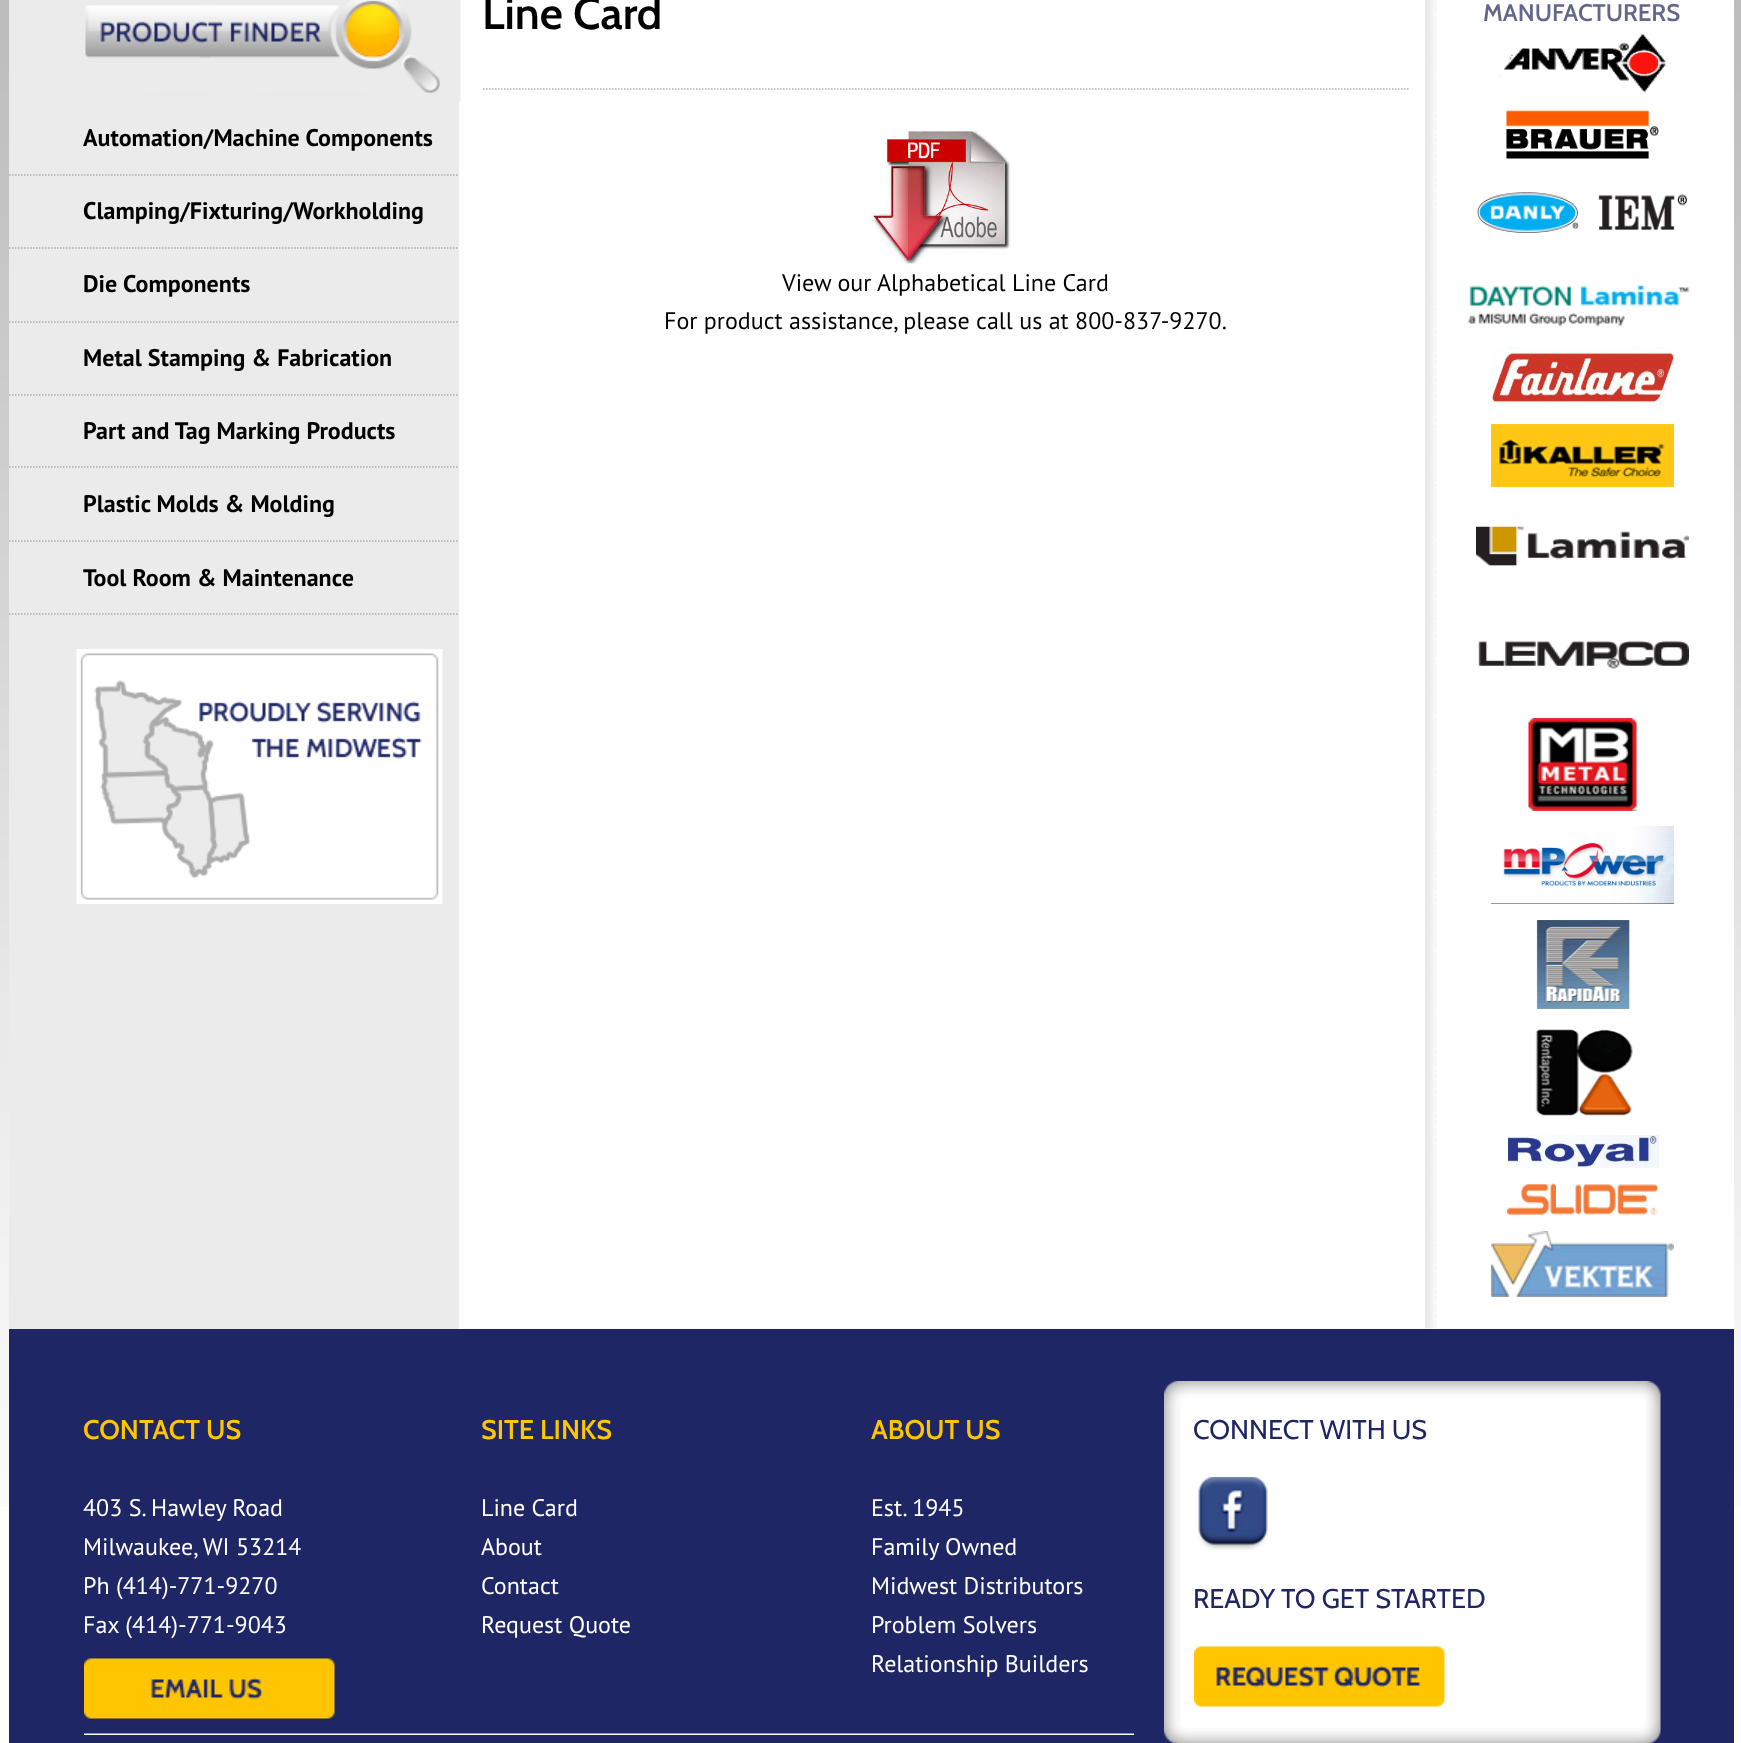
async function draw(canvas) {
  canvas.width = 1741;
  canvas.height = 1743;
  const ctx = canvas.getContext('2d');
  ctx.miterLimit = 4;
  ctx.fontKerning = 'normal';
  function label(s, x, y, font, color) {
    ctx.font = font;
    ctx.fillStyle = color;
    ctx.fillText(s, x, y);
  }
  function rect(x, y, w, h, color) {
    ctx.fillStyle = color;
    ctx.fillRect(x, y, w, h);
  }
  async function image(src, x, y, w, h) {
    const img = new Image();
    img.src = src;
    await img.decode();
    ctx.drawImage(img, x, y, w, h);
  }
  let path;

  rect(0, 0, 1741, 1743, '#fff');
  await image('assets/img1.png', 0, 0, 1741, 1507);
  rect(459, 0, 1275, 1329, '#fff');
  rect(9, 0, 450, 1329, '#ecebeb');
  await image('assets/img2.png', 85, 0, 376, 102);
  path = new Path2D('M9 175H459');
  ctx.strokeStyle = '#aeaeae';
  ctx.lineWidth = 1.5;
  ctx.setLineDash([1.5, 1.5]);
  ctx.stroke(path);
  label('Automation/Machine Components', 83, 146, 'bold 24px PT Sans', '#000');
  path = new Path2D('M9 248H459');
  ctx.stroke(path);
  label('Clamping/Fixturing/Workholding', 83, 219, 'bold 24px PT Sans', '#000');
  path = new Path2D('M9 322H459');
  ctx.stroke(path);
  label('Die Components', 83, 292, 'bold 24px PT Sans', '#000');
  path = new Path2D('M9 395H459');
  ctx.stroke(path);
  label('Metal Stamping & Fabrication', 83, 366, 'bold 24px PT Sans', '#000');
  path = new Path2D('M9 467H459');
  ctx.stroke(path);
  label('Part and Tag Marking Products', 83, 439, 'bold 24px PT Sans', '#000');
  path = new Path2D('M9 541H459');
  ctx.stroke(path);
  label('Plastic Molds & Molding', 83, 512, 'bold 24px PT Sans', '#000');
  path = new Path2D('M9 614H459');
  ctx.stroke(path);
  label('Tool Room & Maintenance', 83, 586, 'bold 24px PT Sans', '#000');
  await image('assets/img3.png', 76, 649, 367, 255);
  path = new Path2D('M483 89H1410');
  ctx.stroke(path);
  label('Line Card', 482, 29, '600 45px Cabin', '#000');
  await image('assets/img4.png', 871, 130, 140, 134);
  label('View our Alphabetical Line Card', 782, 291, '24px PT Sans', '#000');
  label('For product assistance, please call us at 800-837-9270.', 664, 329, '24px PT Sans', '#000');
  await image('assets/img5.png', 1425, 0, 12, 1329);
  label('MANUFACTURERS', 1483, 21, '600 24px Cabin', '#64678c');
  await image('assets/img6.png', 1498, 33, 168, 60);
  await image('assets/img7.png', 1506, 110, 153, 49);
  await image('assets/img8.png', 1477, 192, 210, 41);
  await image('assets/img9.png', 1468, 284, 222, 43);
  await image('assets/img10.png', 1491, 347, 183, 62);
  await image('assets/img11.png', 1491, 424, 183, 63);
  await image('assets/img12.png', 1476, 526, 213, 40);
  await image('assets/img13.png', 1478, 640, 211, 29);
  await image('assets/img14.png', 1528, 718, 109, 93);
  await image('assets/img15.png', 1491, 826, 183, 78);
  await image('assets/img16.png', 1536, 920, 94, 89);
  await image('assets/img17.png', 1535, 1029, 98, 87);
  await image('assets/img18.png', 1506, 1135, 153, 33);
  await image('assets/img19.png', 1507, 1183, 151, 32);
  await image('assets/img20.png', 1491, 1231, 183, 66);
  rect(9, 1329, 1725, 414, '#1e2665');
  label('CONTACT US', 83, 1439, '600 27px Cabin', '#fec500');
  label('403 S. Hawley Road', 83, 1516, '24px PT Sans', '#fff');
  label('Milwaukee, WI 53214', 83, 1555, '24px PT Sans', '#fff');
  label('Ph (414)-771-9270', 83, 1594, '24px PT Sans', '#fff');
  label('Fax (414)-771-9043', 83, 1633, '24px PT Sans', '#fff');
  await image('assets/img21.png', 84, 1658, 251, 61);
  label('SITE LINKS', 481, 1439, '600 27px Cabin', '#fec500');
  label('Line Card', 481, 1516, '24px PT Sans', '#fff');
  label('About', 481, 1555, '24px PT Sans', '#fff');
  label('Contact', 481, 1594, '24px PT Sans', '#fff');
  label('Request Quote', 481, 1633, '24px PT Sans', '#fff');
  label('ABOUT US', 871, 1439, '600 27px Cabin', '#fec500');
  label('Est. 1945', 871, 1516, '24px PT Sans', '#fff');
  label('Family Owned', 871, 1555, '24px PT Sans', '#fff');
  label('Midwest Distributors', 871, 1594, '24px PT Sans', '#fff');
  label('Problem Solvers', 871, 1633, '24px PT Sans', '#fff');
  label('Relationship Builders', 871, 1672, '24px PT Sans', '#fff');
  await image('assets/img22.png', 1164, 1381, 497, 362);
  label('CONNECT WITH US', 1193, 1439, '27px Cabin', '#1e2665');
  await image('assets/img23.png', 1197, 1477, 71, 74);
  label('READY TO GET STARTED', 1193, 1608, '27px Cabin', '#1e2665');
  await image('assets/img24.png', 1194, 1646, 251, 61);
  await image('assets/img25.png', 84, 1733, 1050, 2);
}

draw(document.querySelector('canvas'));
